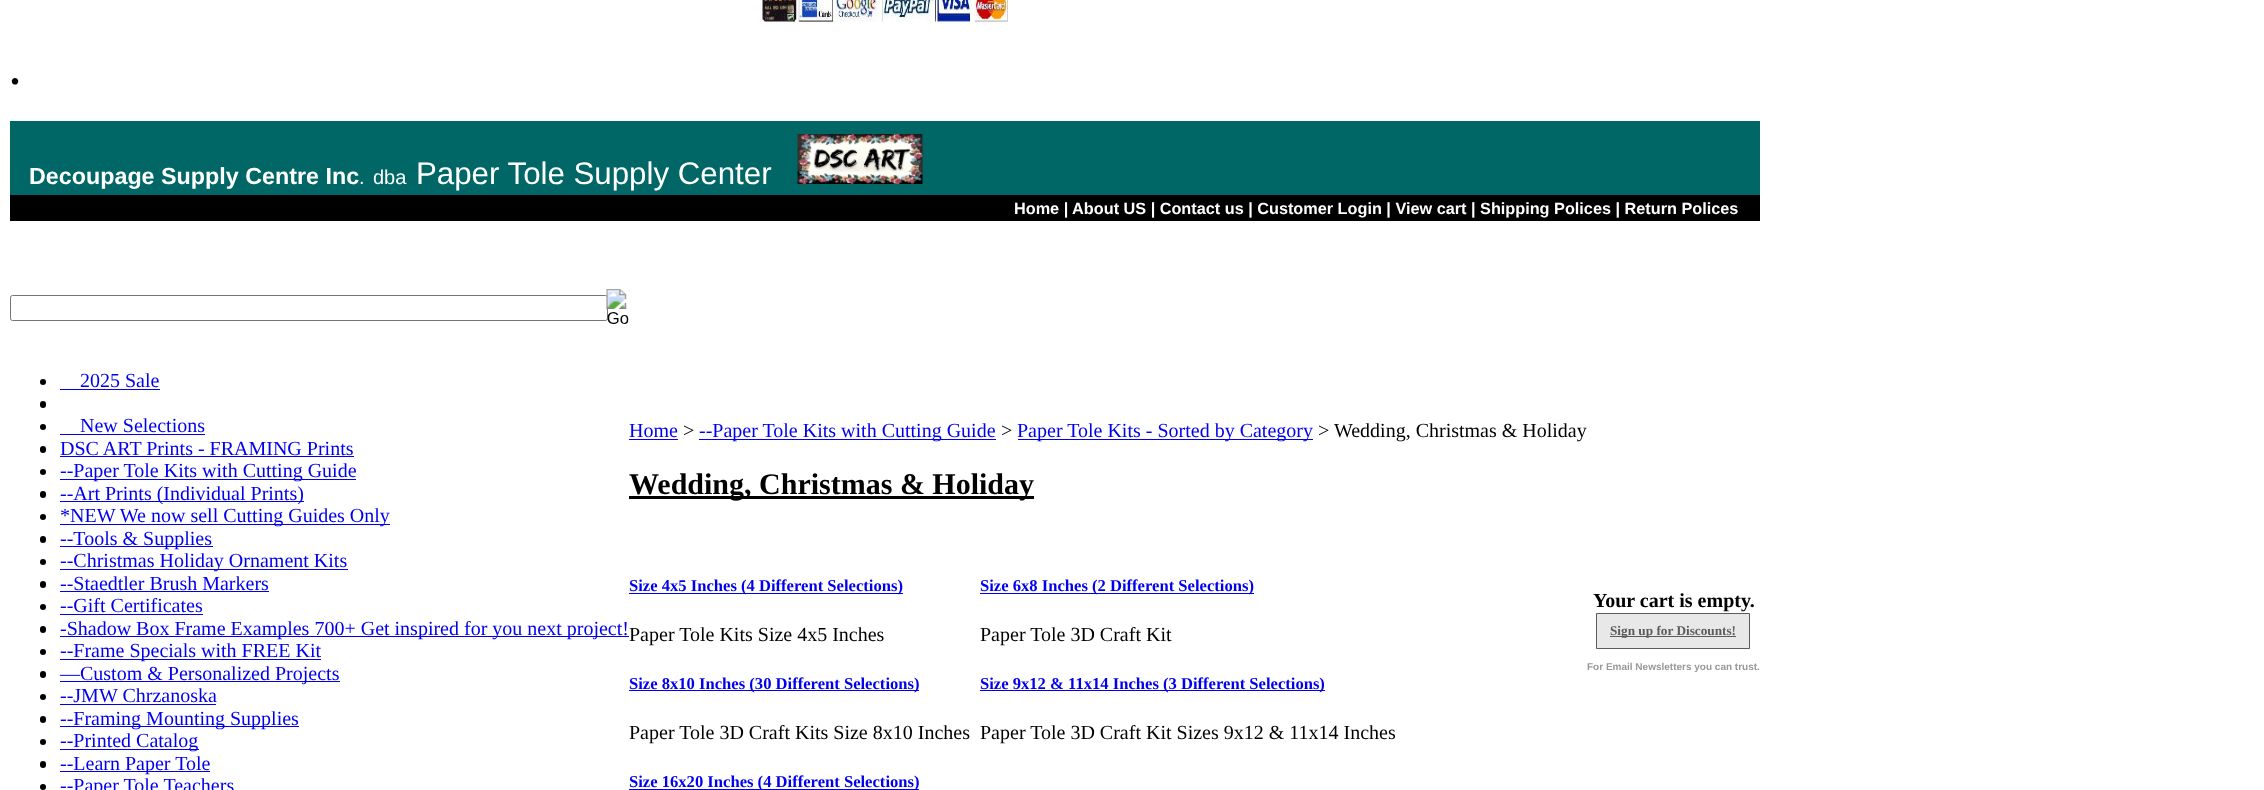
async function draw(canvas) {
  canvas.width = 2264;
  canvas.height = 790;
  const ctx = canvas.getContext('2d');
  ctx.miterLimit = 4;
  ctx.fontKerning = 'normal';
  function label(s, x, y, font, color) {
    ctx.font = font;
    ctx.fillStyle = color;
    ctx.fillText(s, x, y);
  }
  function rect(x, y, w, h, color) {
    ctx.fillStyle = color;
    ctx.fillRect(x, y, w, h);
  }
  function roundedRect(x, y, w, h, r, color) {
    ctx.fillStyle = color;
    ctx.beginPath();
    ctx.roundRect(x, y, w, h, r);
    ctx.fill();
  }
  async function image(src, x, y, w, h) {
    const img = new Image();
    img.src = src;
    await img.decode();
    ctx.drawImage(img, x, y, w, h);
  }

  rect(0, 0, 2264, 790, '#fff');
  await image('assets/img1.png', 762, 0, 246, 22);
  label('.', 10, 84, 'bold 40px Liberation Serif', '#000');
  rect(10, 121, 1750, 74, '#066');
  label('Decoupage Supply Centre Inc', 29, 184, 'bold 23.3px Liberation Sans', '#fff');
  label('.', 359, 184, '20px Liberation Sans', '#fff');
  label('dba', 373, 184, '20px Liberation Sans', '#fff');
  label('Paper Tole Supply Center', 416, 184, '31.25px Liberation Sans', '#fff');
  await image('assets/img2.png', 797, 134, 126, 50);
  rect(10, 195, 1750, 26, '#000');
  label('Home | About US | Contact us | Customer Login | View cart | Shipping Polices | Return Polices', 1014, 214, 'bold 16.25px Liberation Sans', '#fff');
  ctx.beginPath();
  ctx.roundRect(10.5, 295.5, 597, 25, 2);
  ctx.strokeStyle = '#767676';
  ctx.stroke();
  await image('assets/img3.png', 606, 289, 23, 35);
  ctx.fillStyle = '#000';
  ctx.beginPath();
  ctx.arc(43, 382, 3, 0, 2 * Math.PI);
  ctx.fill();
  label('2025 Sale', 80, 387, '20px Liberation Serif', '#00e');
  rect(60, 389, 100, 1, '#00e');
  roundedRect(40, 401, 6, 7, 3, '#000');
  ctx.beginPath();
  ctx.arc(43, 427, 3, 0, 2 * Math.PI);
  ctx.fill();
  label('New Selections', 80, 432, '20px Liberation Serif', '#00e');
  rect(60, 434, 145, 1, '#00e');
  roundedRect(40, 446, 6, 7, 3, '#000');
  label('DSC ART Prints - FRAMING Prints', 60, 455, '20px Liberation Serif', '#00e');
  rect(60, 456, 294, 1, '#00e');
  ctx.fillStyle = '#000';
  ctx.beginPath();
  ctx.arc(43, 472, 3, 0, 2 * Math.PI);
  ctx.fill();
  rect(60, 479, 296, 1, '#00e');
  label('--Paper Tole Kits with Cutting Guide', 60, 477, '20px Liberation Serif', '#00e');
  roundedRect(40, 491, 6, 7, 3, '#000');
  rect(60, 501, 244, 1, '#00e');
  label('--Art Prints (Individual Prints)', 60, 500, '20px Liberation Serif', '#00e');
  ctx.fillStyle = '#000';
  ctx.beginPath();
  ctx.arc(43, 517, 3, 0, 2 * Math.PI);
  ctx.fill();
  rect(60, 524, 330, 1, '#00e');
  label('*NEW We now sell Cutting Guides Only', 60, 522, '20px Liberation Serif', '#00e');
  roundedRect(40, 536, 6, 7, 3, '#000');
  rect(60, 546, 153, 1, '#00e');
  label('--Tools & Supplies', 60, 545, '20px Liberation Serif', '#00e');
  ctx.fillStyle = '#000';
  ctx.beginPath();
  ctx.arc(43, 562, 3, 0, 2 * Math.PI);
  ctx.fill();
  rect(60, 569, 288, 1, '#00e');
  label('--Christmas Holiday Ornament Kits', 60, 567, '20px Liberation Serif', '#00e');
  roundedRect(40, 581, 6, 7, 3, '#000');
  label('--Staedtler Brush Markers', 60, 590, '20px Liberation Serif', '#00e');
  rect(60, 591, 209, 1, '#00e');
  ctx.fillStyle = '#000';
  ctx.beginPath();
  ctx.arc(43, 607, 3, 0, 2 * Math.PI);
  ctx.fill();
  label('--Gift Certificates', 60, 612, '20px Liberation Serif', '#00e');
  rect(60, 614, 143, 1, '#00e');
  roundedRect(40, 626, 6, 7, 3, '#000');
  rect(60, 636, 569, 1, '#00e');
  label('-Shadow Box Frame Examples 700+ Get inspired for you next project!', 60, 635, '20px Liberation Serif', '#00e');
  ctx.fillStyle = '#000';
  ctx.beginPath();
  ctx.arc(43, 652, 3, 0, 2 * Math.PI);
  ctx.fill();
  rect(60, 659, 261, 1, '#00e');
  label('--Frame Specials with FREE Kit', 60, 657, '20px Liberation Serif', '#00e');
  roundedRect(40, 671, 6, 7, 3, '#000');
  rect(60, 681, 280, 1, '#00e');
  label('—Custom & Personalized Projects', 60, 680, '20px Liberation Serif', '#00e');
  ctx.fillStyle = '#000';
  ctx.beginPath();
  ctx.arc(43, 697, 3, 0, 2 * Math.PI);
  ctx.fill();
  label('--JMW Chrzanoska', 60, 702, '20px Liberation Serif', '#00e');
  rect(60, 704, 156, 1, '#00e');
  roundedRect(40, 716, 6, 7, 3, '#000');
  rect(60, 726, 239, 1, '#00e');
  label('--Framing Mounting Supplies', 60, 725, '20px Liberation Serif', '#00e');
  ctx.fillStyle = '#000';
  ctx.beginPath();
  ctx.arc(43, 742, 3, 0, 2 * Math.PI);
  ctx.fill();
  rect(60, 749, 139, 1, '#00e');
  label('--Printed Catalog', 60, 747, '20px Liberation Serif', '#00e');
  roundedRect(40, 761, 6, 7, 3, '#000');
  rect(60, 771, 150, 1, '#00e');
  label('--Learn Paper Tole', 60, 770, '20px Liberation Serif', '#00e');
  ctx.fillStyle = '#000';
  ctx.beginPath();
  ctx.arc(43, 787, 3, 0, 2 * Math.PI);
  ctx.fill();
  label('--Paper Tole Teachers', 60, 792, '20px Liberation Serif', '#00e');
  label('Home', 629, 437, '20px Liberation Serif', '#00e');
  rect(629, 439, 49, 1, '#00e');
  label('>', 683, 437, '20px Liberation Serif', '#000');
  rect(699, 439, 297, 1, '#00e');
  label('--Paper Tole Kits with Cutting Guide', 699, 437, '20px Liberation Serif', '#00e');
  label('>', 1001, 437, '20px Liberation Serif', '#000');
  rect(1018, 439, 295, 1, '#00e');
  label('Paper Tole Kits - Sorted by Category', 1017, 437, '20px Liberation Serif', '#00e');
  label('> Wedding, Christmas & Holiday', 1318, 437, '20px Liberation Serif', '#000');
  rect(629, 496, 405, 3, '#000');
  label('Wedding, Christmas & Holiday', 629, 494, 'bold 30px Liberation Serif', '#000');
  rect(629, 593, 274, 1, '#00e');
  label('Size 4x5 Inches (4 Different Selections)', 629, 591, 'bold 16.6px Liberation Serif', '#00e');
  label('Paper Tole Kits Size 4x5 Inches', 629, 641, '20px Liberation Serif', '#000');
  rect(980, 593, 274, 1, '#00e');
  label('Size 6x8 Inches (2 Different Selections)', 980, 591, 'bold 16.6px Liberation Serif', '#00e');
  label('Paper Tole 3D Craft Kit', 980, 641, '20px Liberation Serif', '#000');
  rect(629, 690, 290, 1, '#00e');
  label('Size 8x10 Inches (30 Different Selections)', 629, 689, 'bold 16.6px Liberation Serif', '#00e');
  label('Paper Tole 3D Craft Kits Size 8x10 Inches', 629, 739, '20px Liberation Serif', '#000');
  rect(980, 690, 345, 1, '#00e');
  label('Size 9x12 & 11x14 Inches (3 Different Selections)', 980, 689, 'bold 16.6px Liberation Serif', '#00e');
  label('Paper Tole 3D Craft Kit Sizes 9x12 & 11x14 Inches', 980, 739, '20px Liberation Serif', '#000');
  rect(629, 789, 290, 1, '#00e');
  label('Size 16x20 Inches (4 Different Selections)', 629, 787, 'bold 16.6px Liberation Serif', '#00e');
  label('Your cart is empty.', 1593, 607, 'bold 20px Liberation Serif', '#000');
  ctx.fillStyle = '#e8e8e8';
  ctx.beginPath();
  ctx.rect(1596.5, 613.5, 153, 35);
  ctx.fill();
  ctx.strokeStyle = '#5b5b5b';
  ctx.stroke();
  rect(1610, 636, 126, 1, '#5b5b5b');
  label('Sign up for Discounts!', 1610, 635, 'bold 13.25px Liberation Serif', '#5b5b5b');
  label('For Email Newsletters you can trust.', 1587, 670, 'bold 10px Liberation Sans', '#999');
}

draw(document.querySelector('canvas'));
